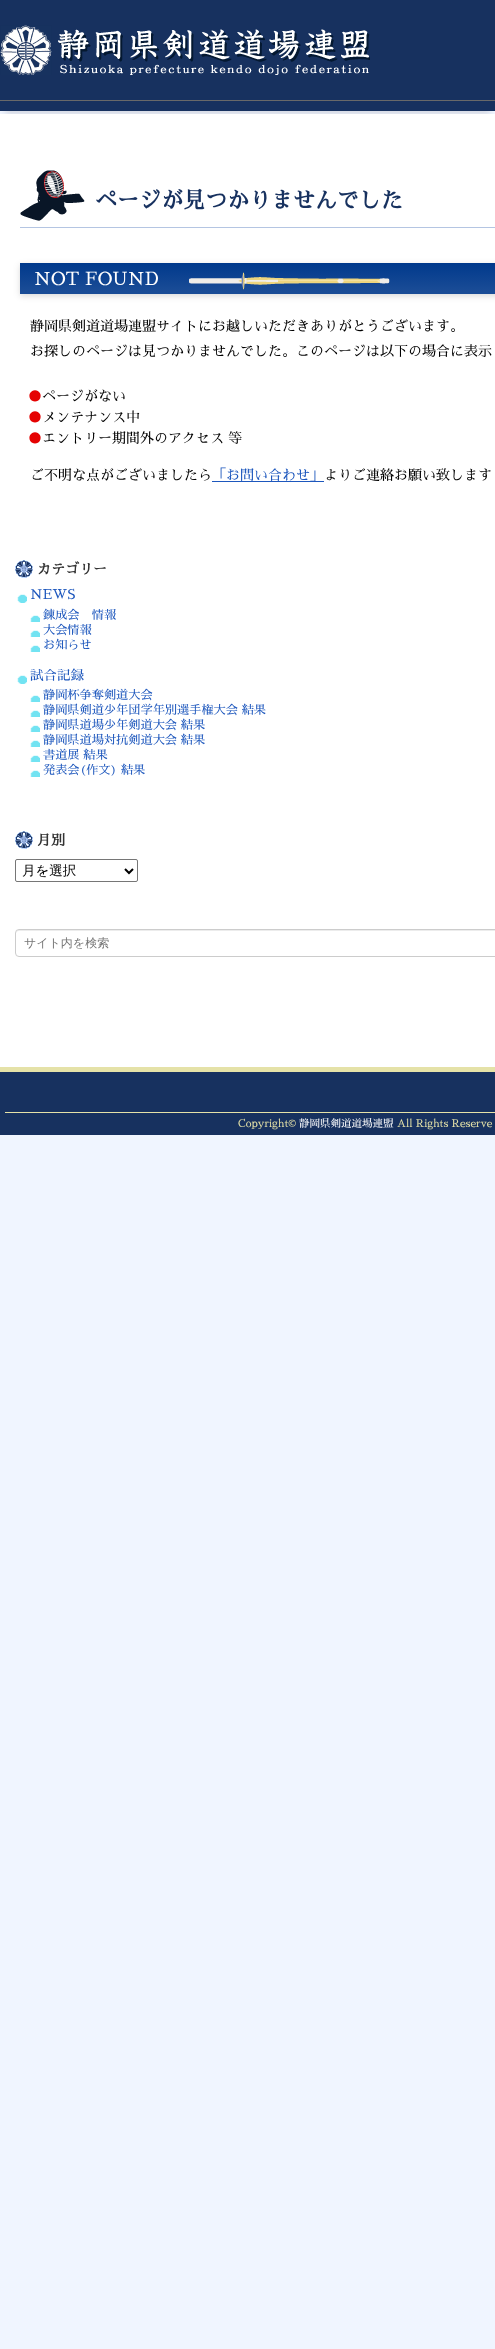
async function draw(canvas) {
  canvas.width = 495;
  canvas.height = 2349;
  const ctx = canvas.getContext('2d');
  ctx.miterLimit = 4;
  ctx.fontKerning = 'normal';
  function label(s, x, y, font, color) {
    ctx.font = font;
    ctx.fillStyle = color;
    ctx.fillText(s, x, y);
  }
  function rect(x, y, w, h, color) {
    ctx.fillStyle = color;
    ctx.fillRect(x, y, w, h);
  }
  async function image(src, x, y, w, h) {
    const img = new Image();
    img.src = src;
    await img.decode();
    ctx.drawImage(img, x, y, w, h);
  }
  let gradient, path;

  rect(0, 0, 495, 2349, '#f0f5ff');
  rect(0, 0, 495, 100, '#17315f');
  await image('assets/img1.png', 0, 25, 370, 50);
  ctx.fillStyle = '#000000cc';
  ctx.filter = 'blur(3px)';
  ctx.beginPath();
  ctx.rect(5, 110, 485, 1);
  ctx.fill();
  ctx.filter = 'none';
  rect(0, 101, 495, 10, '#17315f');
  rect(0, 100, 495, 1, '#696969');
  rect(0, 114, 495, 953, '#fff');
  await image('assets/img2.png', 20, 170, 65, 51);
  rect(20, 227, 475, 1, '#b4c5e2');
  label('ページが見つかりませんでした', 95, 208, 'bold 22px Sawarabi Mincho', '#17315f');
  ctx.fillStyle = '#00000026';
  ctx.filter = 'blur(3px)';
  ctx.beginPath();
  ctx.rect(20, 265, 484, 31);
  ctx.fill();
  ctx.filter = 'none';
  gradient = ctx.createLinearGradient(410, 263, 410, 294);
  gradient.addColorStop(0, '#00398c');
  gradient.addColorStop(0.9, '#1a4c96');
  ctx.fillStyle = gradient;
  ctx.fillRect(20, 263, 475, 31);
  label('NOT FOUND', 34, 285, '18px Sawarabi Mincho', '#fff');
  await image('assets/img3.png', 189, 272, 201, 18);
  label('静岡県剣道道場連盟サイトにお越しいただきありがとうございます。', 30, 331, '14px Sawarabi Mincho', '#000');
  label('お探しのページは見つかりませんでした。このページは以下の場合に表示', 30, 356, '14px Sawarabi Mincho', '#000');
  label('●', 28, 401, '14px Sawarabi Mincho', '#e50202');
  label('ページがない', 42, 401, '14px Sawarabi Mincho', '#000');
  label('●', 28, 422, '14px Sawarabi Mincho', '#e50202');
  label('メンテナンス中', 42, 422, '14px Sawarabi Mincho', '#000');
  label('●', 28, 443, '14px Sawarabi Mincho', '#e50202');
  label('エントリー期間外のアクセス 等', 42, 443, '14px Sawarabi Mincho', '#000');
  label('ご不明な点がございましたら', 30, 480, '14px Sawarabi Mincho', '#000');
  rect(212, 481, 112, 1, '#1d57bd');
  label('「お問い合わせ」', 212, 480, '14px Sawarabi Mincho', '#1d57bd');
  label('よりご連絡お願い致します', 324, 480, '14px Sawarabi Mincho', '#000');
  await image('assets/img4.png', 15, 560, 18, 18);
  label('カテゴリー', 37, 574, 'bold 14px Sawarabi Mincho', '#333');
  await image('assets/img5.png', 17, 594, 10, 9);
  label('NEWS', 30, 599, '13.5px Sawarabi Mincho', '#1d57bd');
  await image('assets/img6.png', 30, 615, 10, 7);
  label('錬成会　情報', 43, 619, '12.2px Sawarabi Mincho', '#1d57bd');
  await image('assets/img6.png', 30, 630, 10, 7);
  label('大会情報', 43, 634, '12.2px Sawarabi Mincho', '#1d57bd');
  await image('assets/img6.png', 30, 645, 10, 7);
  label('お知らせ', 43, 649, '12.2px Sawarabi Mincho', '#1d57bd');
  await image('assets/img5.png', 17, 675, 10, 9);
  label('試合記録', 30, 680, '13.5px Sawarabi Mincho', '#1d57bd');
  await image('assets/img6.png', 30, 695, 10, 7);
  label('静岡杯争奪剣道大会', 43, 699, '12.2px Sawarabi Mincho', '#1d57bd');
  await image('assets/img6.png', 30, 710, 10, 7);
  label('静岡県剣道少年団学年別選手権大会 結果', 43, 714, '12.2px Sawarabi Mincho', '#1d57bd');
  await image('assets/img6.png', 30, 725, 10, 7);
  label('静岡県道場少年剣道大会 結果', 43, 729, '12.2px Sawarabi Mincho', '#1d57bd');
  await image('assets/img6.png', 30, 740, 10, 7);
  label('静岡県道場対抗剣道大会 結果', 43, 744, '12.2px Sawarabi Mincho', '#1d57bd');
  await image('assets/img6.png', 30, 755, 10, 7);
  label('書道展 結果', 43, 759, '12.2px Sawarabi Mincho', '#1d57bd');
  await image('assets/img6.png', 30, 770, 10, 7);
  label('発表会(作文) 結果', 43, 774, '12.2px Sawarabi Mincho', '#1d57bd');
  await image('assets/img4.png', 15, 831, 18, 18);
  label('月別', 37, 845, 'bold 14px Sawarabi Mincho', '#333');
  ctx.beginPath();
  ctx.roundRect(15.5, 859.5, 122, 22, 1.5);
  ctx.strokeStyle = '#767676';
  ctx.stroke();
  path = new Path2D('M125 869L129 873L133 869');
  ctx.strokeStyle = '#000';
  ctx.lineWidth = 2;
  ctx.stroke(path);
  label('月を選択', 22, 875, '500 13.5px WenQuanYi Zen Hei', '#000');
  ctx.fillStyle = '#ececec';
  path = new Path2D('M19 931H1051C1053 931 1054 932 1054 934C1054 932 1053 930 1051 930H19C17 930 16 932 16 934C16 932 17 931 19 931Z');
  ctx.fill(path);
  ctx.beginPath();
  ctx.roundRect(15.5, 929.5, 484, 27, 3.5);
  ctx.strokeStyle = '#ccc';
  ctx.lineWidth = 1;
  ctx.stroke();
  label('サイト内を検索', 24, 947, '500 12px WenQuanYi Zen Hei', '#757575');
  rect(0, 1072, 495, 63, '#17315f');
  rect(0, 1067, 495, 5, '#e5e2a8');
  rect(5, 1112, 490, 1, '#e5e2a8');
  label('Copyright©', 238, 1127, '10.5px Sawarabi Mincho', '#e5e2a8');
  label('静岡県剣道道場連盟', 299, 1127, '10.5px Sawarabi Mincho', '#fff');
  label('All Rights Reserve', 397, 1127, '10.5px Sawarabi Mincho', '#e5e2a8');
}

draw(document.querySelector('canvas'));
